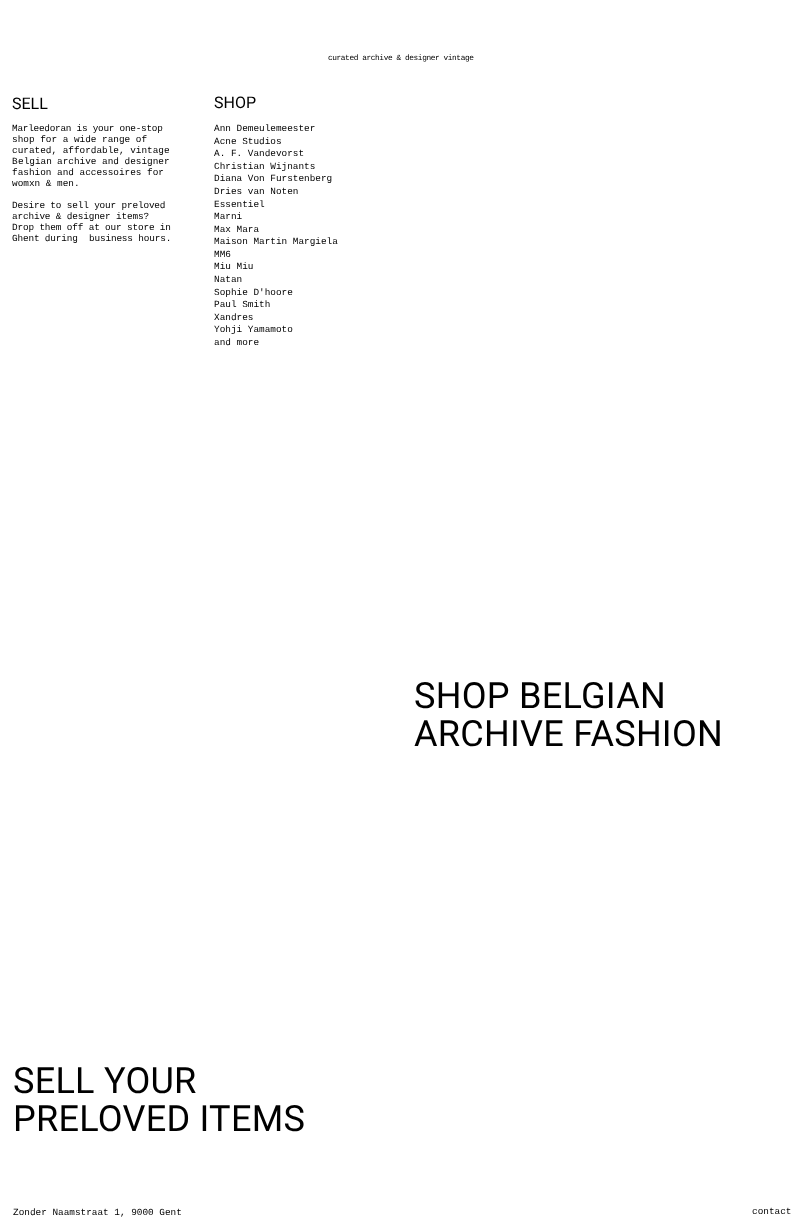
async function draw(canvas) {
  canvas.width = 805;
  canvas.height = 1224;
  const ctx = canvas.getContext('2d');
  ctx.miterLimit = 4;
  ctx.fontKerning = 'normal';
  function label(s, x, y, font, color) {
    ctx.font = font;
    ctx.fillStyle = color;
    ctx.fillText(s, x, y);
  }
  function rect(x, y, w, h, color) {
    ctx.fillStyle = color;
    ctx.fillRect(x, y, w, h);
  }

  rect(0, 0, 805, 1224, '#fff');
  ctx.letterSpacing = '-0.4px';
  label('curated archive & designer vintage', 328, 60, '7.8px Liberation Mono', '#000');
  ctx.letterSpacing = '0px';
  label('SELL', 12, 109, '16px Roboto', '#000');
  label('SHOP', 214, 108, '16px Roboto', '#000');
  ctx.letterSpacing = '-0.25px';
  label('Marleedoran is your one-stop', 12, 131, '9.4px Liberation Mono', '#000');
  ctx.letterSpacing = '0px';
  label('shop for a wide range of', 12, 142, '9.4px Liberation Mono', '#000');
  label('curated, affordable, vintage', 12, 153, '9.4px Liberation Mono', '#000');
  label('B', 12, 164, '9.4px Liberation Mono', '#000');
  label('elgian', 18, 164, '9.4px Liberation Mono', '#000');
  label('archive and designer', 57, 164, '9.4px Liberation Mono', '#000');
  label('fashion', 12, 175, '9.4px Liberation Mono', '#000');
  label('and accessoires for', 57, 175, '9.4px Liberation Mono', '#000');
  label('womxn & men.', 12, 186, '9.4px Liberation Mono', '#000');
  ctx.letterSpacing = '-0.15px';
  label('Desire to sell your preloved', 12, 208, '9.4px Liberation Mono', '#000');
  label('archive & designer items?', 12, 219, '9.4px Liberation Mono', '#000');
  label('Drop them off at our store in', 12, 230, '9.4px Liberation Mono', '#000');
  label('Ghent during', 12, 241, '9.4px Liberation Mono', '#000');
  label('business hours.', 89, 241, '9.4px Liberation Mono', '#000');
  ctx.letterSpacing = '0px';
  label('Ann Demeulemeester', 214, 131, '9.4px Liberation Mono', '#000');
  label('Acne Studios', 214, 144, '9.4px Liberation Mono', '#000');
  label('A. F. Vandevorst', 214, 156, '9.4px Liberation Mono', '#000');
  label('Christian Wijnants', 214, 169, '9.4px Liberation Mono', '#000');
  label('Diana Von Furstenberg', 214, 181, '9.4px Liberation Mono', '#000');
  label('Dries van Noten', 214, 194, '9.4px Liberation Mono', '#000');
  label('Essentiel', 214, 207, '9.4px Liberation Mono', '#000');
  label('Marni', 214, 219, '9.4px Liberation Mono', '#000');
  label('Max Mara', 214, 232, '9.4px Liberation Mono', '#000');
  label('Maison Martin Margiela', 214, 244, '9.4px Liberation Mono', '#000');
  label('MM6', 214, 257, '9.4px Liberation Mono', '#000');
  label('Miu Miu', 214, 269, '9.4px Liberation Mono', '#000');
  label('Natan', 214, 282, '9.4px Liberation Mono', '#000');
  label('Sophie D\'hoore', 214, 295, '9.4px Liberation Mono', '#000');
  label('Paul Smith', 214, 307, '9.4px Liberation Mono', '#000');
  label('Xandres', 214, 320, '9.4px Liberation Mono', '#000');
  label('Yohji Yamamoto', 214, 332, '9.4px Liberation Mono', '#000');
  label('and more', 214, 345, '9.4px Liberation Mono', '#000');
  ctx.letterSpacing = '0.25px';
  label('SHOP BELGIAN', 414, 708, '36.1px Roboto', '#000');
  label('ARCHIVE FASHION', 414, 746, '36.1px Roboto', '#000');
  label('SELL YOUR', 13, 1093, '36.1px Roboto', '#000');
  label('PRELOVED ITEMS', 13, 1131, '36.1px Roboto', '#000');
  ctx.letterSpacing = '0px';
  label('Zonder Naamstraat 1, 9000 Gent', 13, 1215, '9.4px Liberation Mono', '#000');
  label('contact', 752, 1214, '9.4px Liberation Mono', '#000');
}

draw(document.querySelector('canvas'));
